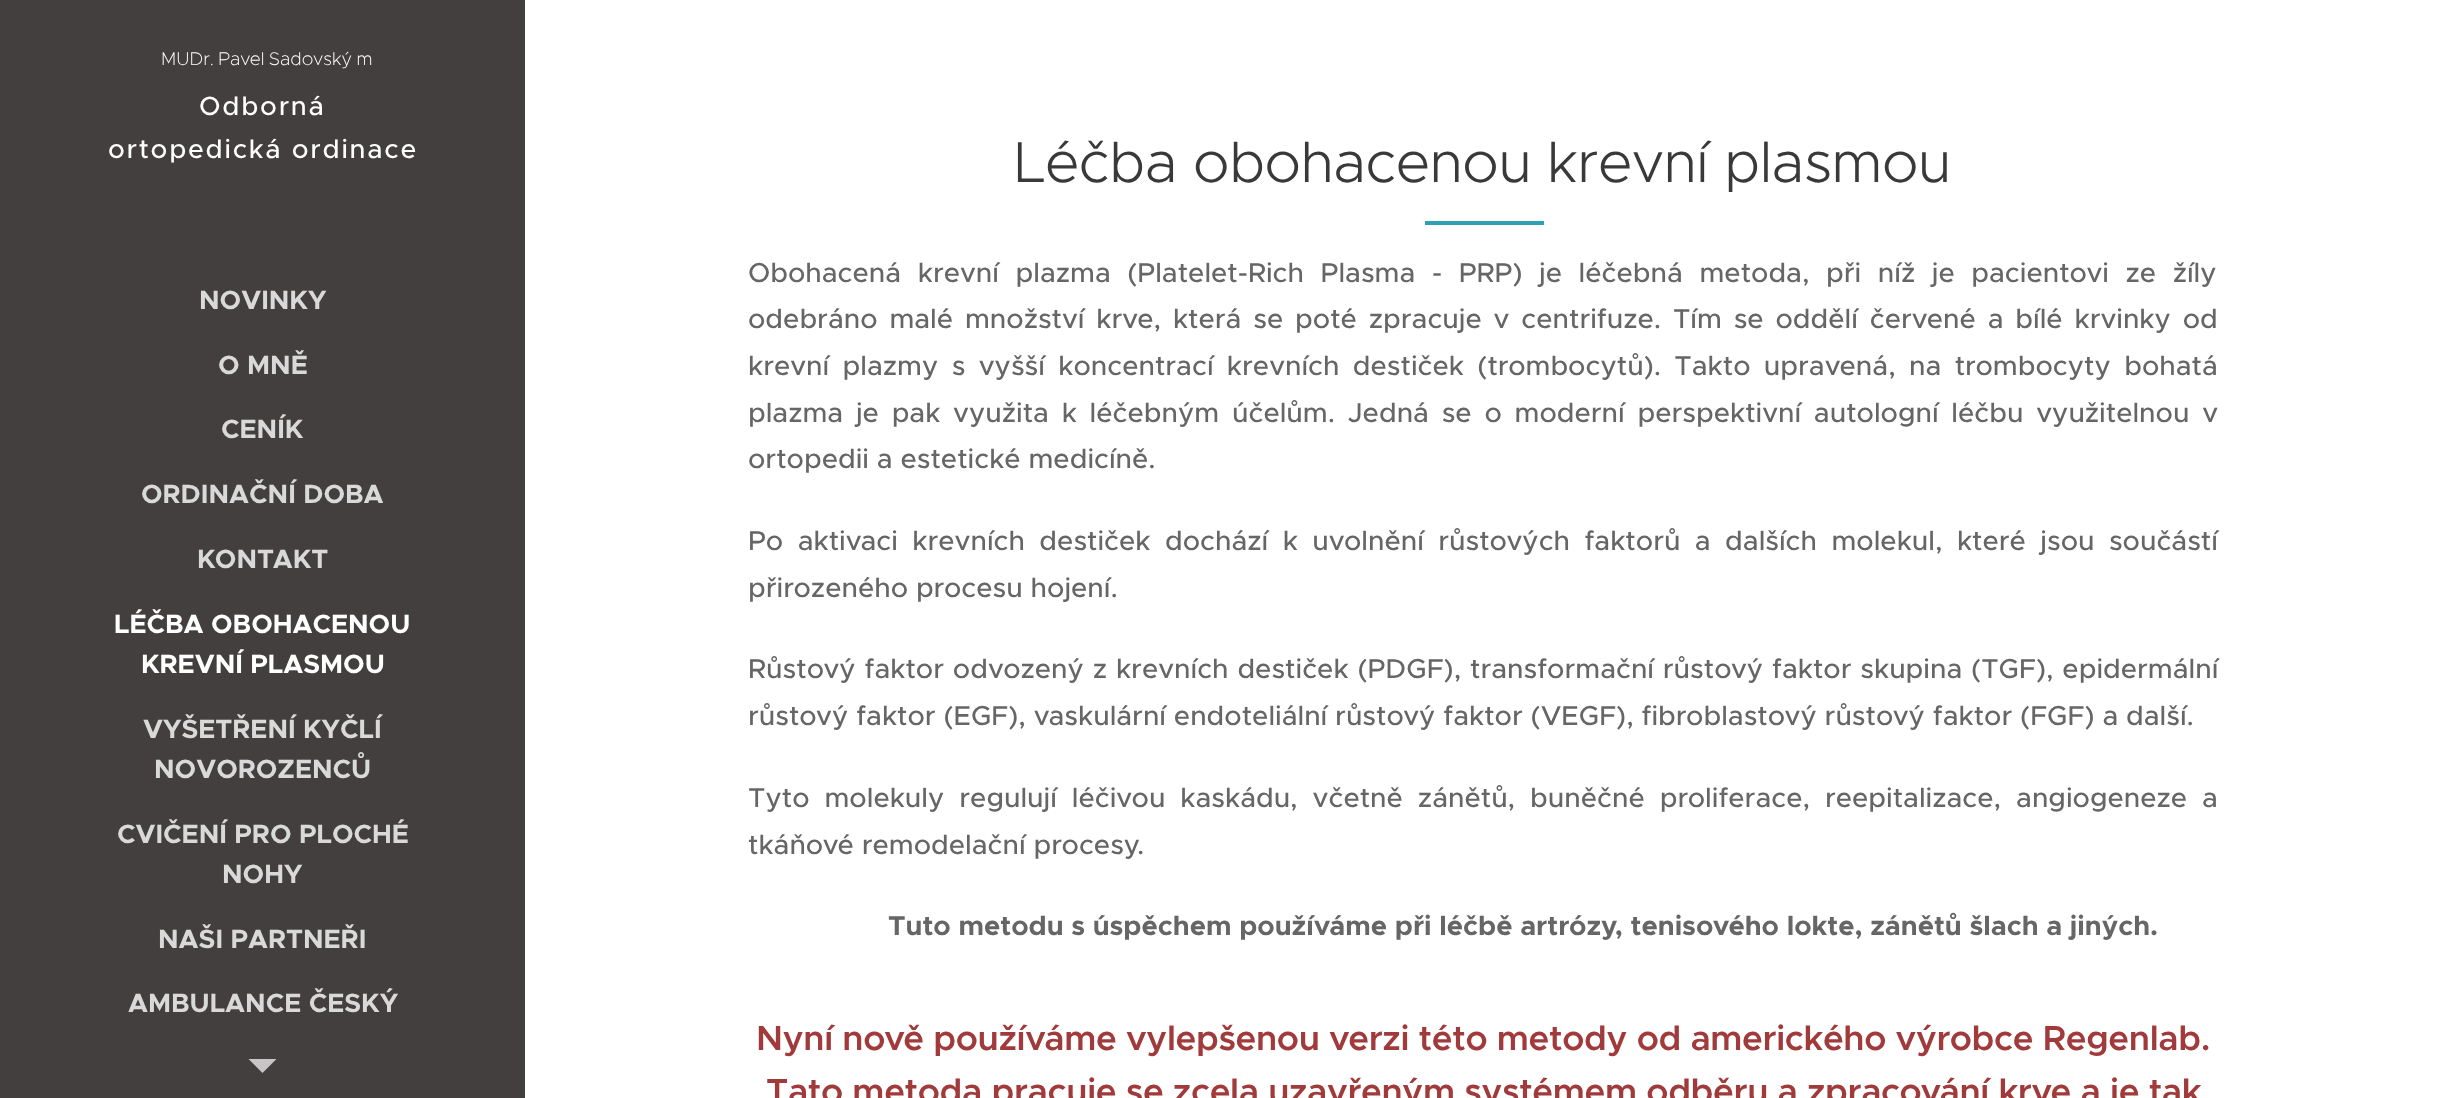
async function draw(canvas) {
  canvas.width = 2440;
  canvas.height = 1098;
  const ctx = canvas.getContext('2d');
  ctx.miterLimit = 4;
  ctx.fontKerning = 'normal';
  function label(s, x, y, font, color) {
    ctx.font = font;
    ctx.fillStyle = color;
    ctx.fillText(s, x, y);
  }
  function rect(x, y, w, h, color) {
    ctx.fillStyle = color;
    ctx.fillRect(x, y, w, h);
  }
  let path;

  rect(0, 0, 2440, 1098, '#fff');
  rect(0, 0, 525, 1098, '#443f3f');
  ctx.wordSpacing = '-1px';
  label('MUDr. Pavel Sadovský m', 161, 65, '200 18.4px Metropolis', '#fff');
  ctx.letterSpacing = '1.75px';
  ctx.wordSpacing = '0px';
  label('Odborná', 199, 115, '500 26.6px Metropolis', '#fff');
  label('ortopedická ordinace', 108, 158, '500 26.6px Metropolis', '#fff');
  ctx.letterSpacing = '0px';
  label('NOVINKY', 199, 309, 'bold 26.6px Metropolis', '#dad9d9');
  label('O MNĚ', 218, 374, 'bold 26.6px Metropolis', '#dad9d9');
  label('CENÍK', 221, 438, 'bold 26.6px Metropolis', '#dad9d9');
  label('ORDINAČNÍ DOBA', 141, 503, 'bold 26.6px Metropolis', '#dad9d9');
  label('KONTAKT', 197, 568, 'bold 26.6px Metropolis', '#dad9d9');
  label('LÉČBA OBOHACENOU', 114, 633, 'bold 26.6px Metropolis', '#fff');
  label('KREVNÍ PLASMOU', 141, 673, 'bold 26.6px Metropolis', '#fff');
  label('VYŠETŘENÍ KYČLÍ', 143, 738, 'bold 26.6px Metropolis', '#dad9d9');
  label('NOVOROZENCŮ', 154, 778, 'bold 26.6px Metropolis', '#dad9d9');
  label('CVIČENÍ PRO PLOCHÉ', 117, 843, 'bold 26.6px Metropolis', '#dad9d9');
  label('NOHY', 222, 883, 'bold 26.6px Metropolis', '#dad9d9');
  label('NAŠI PARTNEŘI', 158, 948, 'bold 26.6px Metropolis', '#dad9d9');
  label('AMBULANCE ČESKÝ', 128, 1012, 'bold 26.6px Metropolis', '#dad9d9');
  ctx.fillStyle = '#c7c5c5';
  path = new Path2D('M248.5 1059H276.5L262.5 1073Z');
  ctx.fill(path);
  ctx.letterSpacing = '-0.6px';
  label('Léčba obohacenou krevní plasmou', 1014, 182, '300 57.75px Metropolis', '#393939');
  rect(1425, 221, 119, 4, '#2ea1b1');
  ctx.letterSpacing = '0px';
  ctx.wordSpacing = '8.75px';
  label('Obohacená krevní plazma (Platelet-Rich Plasma - PRP) je léčebná metoda, při níž je pacientovi ze žíly', 748, 282, '500 27.47px Metropolis', '#666');
  ctx.wordSpacing = '4px';
  label('odebráno malé množství krve, která se poté zpracuje v centrifuze. Tím se oddělí červené a bílé krvinky od', 748, 328, '500 27.47px Metropolis', '#666');
  ctx.wordSpacing = '5.5px';
  label('krevní plazmy s vyšší koncentrací krevních destiček (trombocytů). Takto upravená, na trombocyty bohatá', 748, 375, '500 27.47px Metropolis', '#666');
  ctx.wordSpacing = '4.9px';
  label('plazma je pak využita k léčebným účelům. Jedná se o moderní perspektivní autologní léčbu využitelnou v', 748, 422, '500 27.47px Metropolis', '#666');
  ctx.wordSpacing = '0px';
  label('ortopedii a estetické medicíně.', 748, 468, '500 27.47px Metropolis', '#666');
  ctx.wordSpacing = '6.6px';
  label('Po aktivaci krevních destiček dochází k uvolnění růstových faktorů a dalších molekul, které jsou součástí', 748, 550, '500 27.47px Metropolis', '#666');
  ctx.wordSpacing = '0px';
  label('přirozeného procesu hojení.', 748, 597, '500 27.47px Metropolis', '#666');
  ctx.wordSpacing = '1px';
  label('Růstový faktor odvozený z krevních destiček (PDGF), transformační růstový faktor skupina (TGF), epidermální', 748, 678, '500 27.47px Metropolis', '#666');
  ctx.wordSpacing = '0px';
  label('růstový faktor (EGF), vaskulární endoteliální růstový faktor (VEGF), fibroblastový růstový faktor (FGF) a další.', 748, 725, '500 27.47px Metropolis', '#666');
  ctx.wordSpacing = '7.1px';
  label('Tyto molekuly regulují léčivou kaskádu, včetně zánětů, buněčné proliferace, reepitalizace, angiogeneze a', 748, 807, '500 27.47px Metropolis', '#666');
  ctx.wordSpacing = '0px';
  label('tkáňové remodelační procesy.', 748, 854, '500 27.47px Metropolis', '#666');
  label('Tuto metodu s úspěchem používáme při léčbě artrózy, tenisového lokte, zánětů šlach a jiných.', 888, 935, 'bold 27.47px Metropolis', '#666');
  ctx.letterSpacing = '-0.35px';
  label('Nyní nově používáme vylepšenou verzi této metody od amerického výrobce Regenlab.', 756, 1050, '600 35px Metropolis', '#a13a3b');
  label('Tato metoda pracuje se zcela uzavřeným systémem odběru a zpracování krve a je tak', 766, 1103, '600 35px Metropolis', '#a13a3b');
}

draw(document.querySelector('canvas'));
